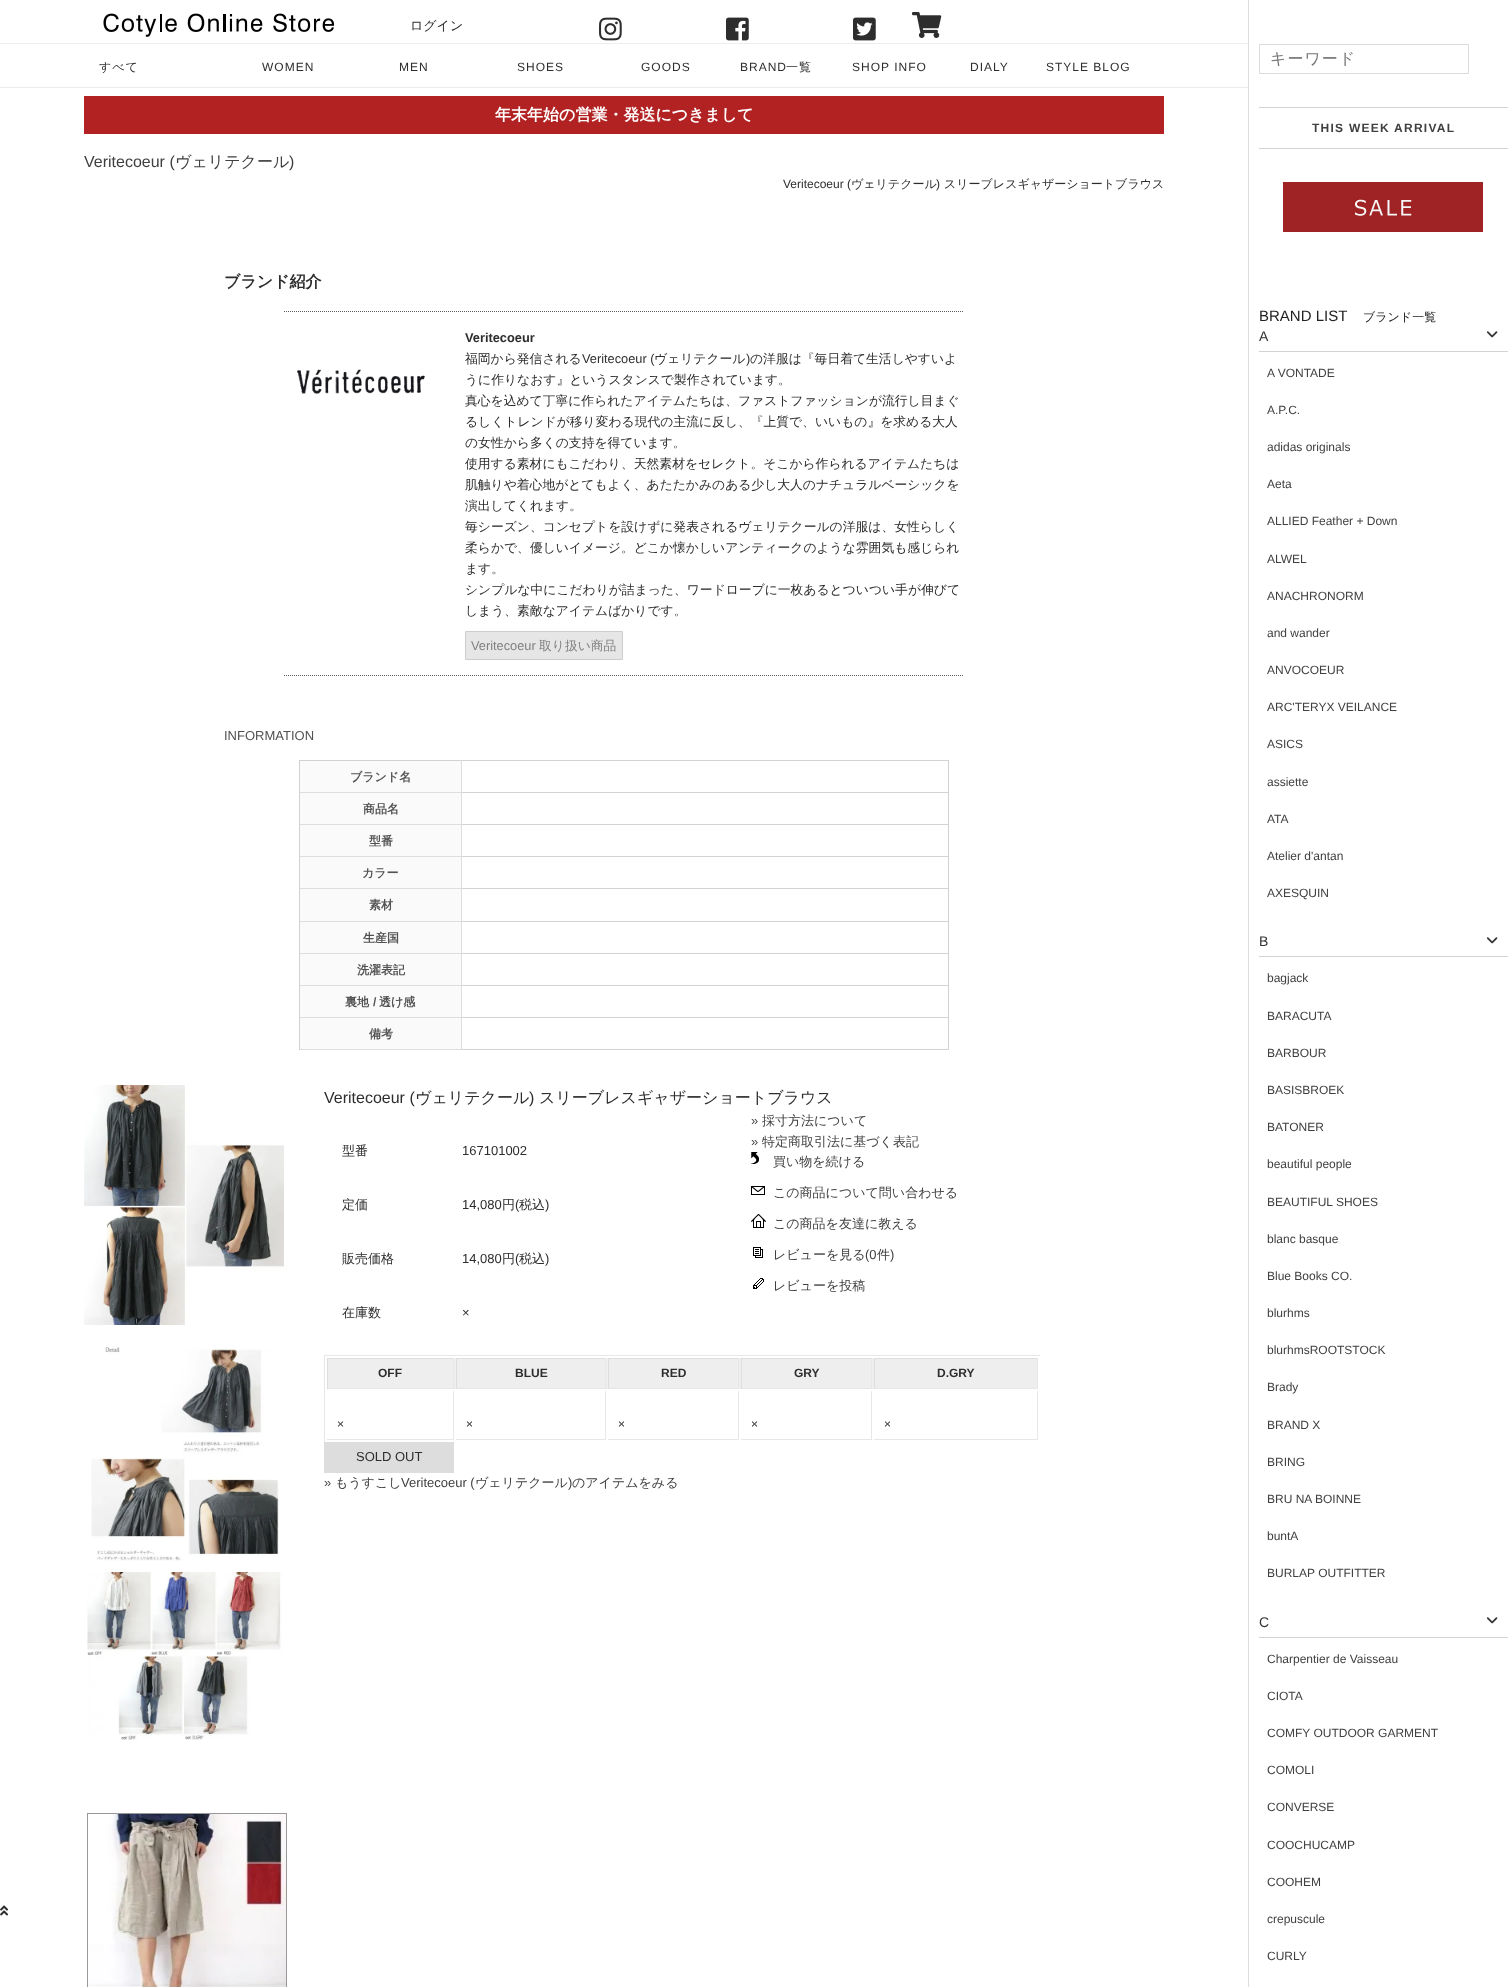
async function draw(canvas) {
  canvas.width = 1508;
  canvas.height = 1987;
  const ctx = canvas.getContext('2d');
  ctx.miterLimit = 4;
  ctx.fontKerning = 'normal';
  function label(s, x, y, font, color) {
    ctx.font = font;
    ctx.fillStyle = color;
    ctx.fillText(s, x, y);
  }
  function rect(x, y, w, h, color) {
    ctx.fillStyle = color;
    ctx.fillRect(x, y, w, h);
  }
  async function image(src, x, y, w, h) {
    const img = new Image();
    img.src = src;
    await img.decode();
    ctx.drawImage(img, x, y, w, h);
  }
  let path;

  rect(0, 0, 1508, 1987, '#fff');
  rect(0, 43, 1248, 1, '#ededed');
  await image('assets/img1.png', 103, 13, 232, 24);
  label('ログイン', 410, 30, '500 13px WenQuanYi Zen Hei', '#2d2d2d');
  await image('assets/img2.png', 599, 17, 23, 24);
  await image('assets/img3.png', 726, 17, 23, 24);
  await image('assets/img4.png', 853, 17, 23, 24);
  await image('assets/img5.png', 912, 12, 30, 26);
  rect(0, 87, 1248, 1, '#ededed');
  ctx.letterSpacing = '1px';
  label('すべて', 99, 71, '500 12px WenQuanYi Zen Hei', '#2d2d2d');
  label('WOMEN', 262, 71, '12px Liberation Sans', '#2d2d2d');
  label('MEN', 399, 71, '12px Liberation Sans', '#2d2d2d');
  label('SHOES', 517, 71, '12px Liberation Sans', '#2d2d2d');
  label('GOODS', 641, 71, '12px Liberation Sans', '#2d2d2d');
  label('BRAND', 740, 71, '12px Liberation Sans', '#2d2d2d');
  label('一覧', 786, 71, '500 12px WenQuanYi Zen Hei', '#2d2d2d');
  label('SHOP INFO', 852, 71, '12px Liberation Sans', '#2d2d2d');
  label('DIALY', 970, 71, '12px Liberation Sans', '#2d2d2d');
  label('STYLE BLOG', 1046, 71, '12px Liberation Sans', '#2d2d2d');
  rect(84, 96, 1080, 38, '#b22222');
  ctx.letterSpacing = '0px';
  label('年末年始の営業・発送につきまして', 495, 120, 'bold 16px WenQuanYi Zen Hei', '#fff');
  label('Veritecoeur (', 84, 167, '16px Liberation Sans', '#404040');
  label('ヴェリテクール', 175, 167, '500 16px WenQuanYi Zen Hei', '#404040');
  label(')', 289, 167, '16px Liberation Sans', '#404040');
  label('Veritecoeur (', 783, 188, '12px Liberation Sans', '#2d2d2d');
  label('ヴェリテクール', 851, 188, '500 12px WenQuanYi Zen Hei', '#2d2d2d');
  label(')', 936, 188, '12px Liberation Sans', '#2d2d2d');
  label('スリーブレスギャザーショートブラウス', 944, 188, '500 12px WenQuanYi Zen Hei', '#2d2d2d');
  label('ブランド紹介', 224, 287, 'bold 16px WenQuanYi Zen Hei', '#2d2d2d');
  path = new Path2D('M284 311.5H964');
  ctx.strokeStyle = '#5a5a5a';
  ctx.setLineDash([1, 1]);
  ctx.stroke(path);
  path = new Path2D('M284 675.5H964');
  ctx.stroke(path);
  await image('assets/img6.png', 297, 369, 128, 26);
  label('Veritecoeur', 465, 342, 'bold 12.8px Liberation Sans', '#2d2d2d');
  label('福岡から発信される', 465, 363, '500 12.8px WenQuanYi Zen Hei', '#2d2d2d');
  label('Veritecoeur (', 582, 363, '12.8px Liberation Sans', '#2d2d2d');
  label('ヴェリテクール', 654, 363, '500 12.8px WenQuanYi Zen Hei', '#2d2d2d');
  label(')', 746, 363, '12.8px Liberation Sans', '#2d2d2d');
  label('の洋服は『毎日着て生活しやすいよ', 750, 363, '500 12.8px WenQuanYi Zen Hei', '#2d2d2d');
  label('うに作りなおす』というスタンスで製作されています。', 465, 384, '500 12.8px WenQuanYi Zen Hei', '#2d2d2d');
  label('真心を込めて丁寧に作られたアイテムたちは、ファストファッションが流行し目まぐ', 465, 405, '500 12.8px WenQuanYi Zen Hei', '#2d2d2d');
  label('るしくトレンドが移り変わる現代の主流に反し、『上質で、いいもの』を求める大人', 465, 426, '500 12.8px WenQuanYi Zen Hei', '#2d2d2d');
  label('の女性から多くの支持を得ています。', 465, 447, '500 12.8px WenQuanYi Zen Hei', '#2d2d2d');
  label('使用する素材にもこだわり、天然素材をセレクト。そこから作られるアイテムたちは', 465, 468, '500 12.8px WenQuanYi Zen Hei', '#2d2d2d');
  label('肌触りや着心地がとてもよく、あたたかみのある少し大人のナチュラルベーシックを', 465, 489, '500 12.8px WenQuanYi Zen Hei', '#2d2d2d');
  label('演出してくれます。', 465, 510, '500 12.8px WenQuanYi Zen Hei', '#2d2d2d');
  label('毎シーズン、コンセプトを設けずに発表されるヴェリテクールの洋服は、女性らしく', 465, 531, '500 12.8px WenQuanYi Zen Hei', '#2d2d2d');
  label('柔らかで、優しいイメージ。どこか懐かしいアンティークのような雰囲気も感じられ', 465, 552, '500 12.8px WenQuanYi Zen Hei', '#2d2d2d');
  label('ます。', 465, 573, '500 12.8px WenQuanYi Zen Hei', '#2d2d2d');
  label('シンプルな中にこだわりが詰まった、ワードローブに一枚あるとついつい手が伸びて', 465, 594, '500 12.8px WenQuanYi Zen Hei', '#2d2d2d');
  label('しまう、素敵なアイテムばかりです。', 465, 615, '500 12.8px WenQuanYi Zen Hei', '#2d2d2d');
  ctx.fillStyle = '#e6e6e6';
  ctx.beginPath();
  ctx.rect(465.5, 631.5, 157, 28);
  ctx.fill();
  ctx.strokeStyle = '#ccc';
  ctx.setLineDash([]);
  ctx.stroke();
  label('Veritecoeur', 471, 650, '12.8px Liberation Sans', '#808080');
  label('取り扱い商品', 539, 650, '500 12.8px WenQuanYi Zen Hei', '#808080');
  label('INFORMATION', 224, 740, '13px Liberation Sans', '#525252');
  rect(948, 760, 1, 290, '#d2d2d2');
  rect(462, 1049, 487, 1, '#d2d2d2');
  rect(299, 760, 650, 1, '#d2d2d2');
  rect(300, 761, 161, 31, '#fafafa');
  rect(461, 792, 488, 1, '#d2d2d2');
  rect(461, 824, 488, 1, '#d2d2d2');
  rect(461, 856, 488, 1, '#d2d2d2');
  rect(461, 888, 488, 1, '#d2d2d2');
  rect(461, 921, 488, 1, '#d2d2d2');
  rect(461, 953, 488, 1, '#d2d2d2');
  rect(461, 985, 488, 1, '#d2d2d2');
  rect(461, 1017, 488, 1, '#d2d2d2');
  rect(461, 1017, 1, 33, '#ddd');
  rect(461, 985, 1, 33, '#ddd');
  rect(461, 953, 1, 33, '#ddd');
  rect(461, 921, 1, 33, '#ddd');
  rect(461, 888, 1, 34, '#ddd');
  rect(461, 856, 1, 33, '#ddd');
  rect(461, 824, 1, 33, '#ddd');
  rect(461, 792, 1, 33, '#ddd');
  rect(461, 760, 1, 33, '#ddd');
  rect(299, 1049, 163, 1, '#ddd');
  rect(299, 1017, 1, 33, '#d2d2d2');
  rect(299, 1017, 163, 1, '#ddd');
  rect(299, 985, 1, 33, '#d2d2d2');
  rect(299, 985, 163, 1, '#ddd');
  rect(299, 953, 1, 33, '#d2d2d2');
  rect(299, 953, 163, 1, '#ddd');
  rect(299, 921, 1, 33, '#d2d2d2');
  rect(299, 921, 163, 1, '#ddd');
  rect(299, 888, 1, 34, '#d2d2d2');
  rect(299, 888, 163, 1, '#ddd');
  rect(299, 856, 1, 33, '#d2d2d2');
  rect(299, 856, 163, 1, '#ddd');
  rect(299, 824, 1, 33, '#d2d2d2');
  rect(299, 824, 163, 1, '#ddd');
  rect(299, 792, 1, 33, '#d2d2d2');
  rect(299, 792, 163, 1, '#ddd');
  rect(299, 760, 1, 33, '#d2d2d2');
  label('ブランド名', 350, 781, 'bold 12px WenQuanYi Zen Hei', '#525252');
  rect(300, 793, 161, 31, '#fafafa');
  label('商品名', 363, 813, 'bold 12px WenQuanYi Zen Hei', '#525252');
  rect(300, 825, 161, 31, '#fafafa');
  label('型番', 369, 845, 'bold 12px WenQuanYi Zen Hei', '#525252');
  rect(300, 857, 161, 31, '#fafafa');
  label('カラー', 362, 877, 'bold 12px WenQuanYi Zen Hei', '#525252');
  rect(300, 889, 161, 32, '#fafafa');
  label('素材', 369, 909, 'bold 12px WenQuanYi Zen Hei', '#525252');
  rect(300, 922, 161, 31, '#fafafa');
  label('生産国', 363, 942, 'bold 12px WenQuanYi Zen Hei', '#525252');
  rect(300, 954, 161, 31, '#fafafa');
  label('洗濯表記', 357, 974, 'bold 12px WenQuanYi Zen Hei', '#525252');
  rect(300, 986, 161, 31, '#fafafa');
  label('裏地', 345, 1006, 'bold 12px WenQuanYi Zen Hei', '#525252');
  label('/', 373, 1006, 'bold 12px Liberation Sans', '#525252');
  label('透け感', 379, 1006, 'bold 12px WenQuanYi Zen Hei', '#525252');
  rect(300, 1018, 161, 31, '#fafafa');
  label('備考', 369, 1038, 'bold 12px WenQuanYi Zen Hei', '#525252');
  await image('assets/img7.png', 84, 1085, 200, 240);
  await image('assets/img8.png', 91, 1347, 188, 214);
  await image('assets/img9.png', 87, 1572, 195, 168);
  label('Veritecoeur (', 324, 1103, '16px Liberation Sans', '#2d2d2d');
  label('ヴェリテクール', 415, 1103, '500 16px WenQuanYi Zen Hei', '#2d2d2d');
  label(')', 529, 1103, '16px Liberation Sans', '#2d2d2d');
  label('スリーブレスギャザーショートブラウス', 539, 1103, '500 16px WenQuanYi Zen Hei', '#2d2d2d');
  label('型番', 342, 1155, '500 13px WenQuanYi Zen Hei', '#2d2d2d');
  label('167101002', 462, 1155, '13px Liberation Sans', '#2d2d2d');
  label('定価', 342, 1209, '500 13px WenQuanYi Zen Hei', '#2d2d2d');
  label('14,080', 462, 1209, '13px Liberation Sans', '#2d2d2d');
  label('円', 502, 1209, '500 13px WenQuanYi Zen Hei', '#2d2d2d');
  label('(', 515, 1209, '13px Liberation Sans', '#2d2d2d');
  label('税込', 519, 1209, '500 13px WenQuanYi Zen Hei', '#2d2d2d');
  label(')', 545, 1209, '13px Liberation Sans', '#2d2d2d');
  label('販売価格', 342, 1263, '500 13px WenQuanYi Zen Hei', '#2d2d2d');
  label('14,080', 462, 1263, '13px Liberation Sans', '#2d2d2d');
  label('円', 502, 1263, '500 13px WenQuanYi Zen Hei', '#2d2d2d');
  label('(', 515, 1263, '13px Liberation Sans', '#2d2d2d');
  label('税込', 519, 1263, '500 13px WenQuanYi Zen Hei', '#2d2d2d');
  label(')', 545, 1263, '13px Liberation Sans', '#2d2d2d');
  label('在庫数', 342, 1317, '500 13px WenQuanYi Zen Hei', '#2d2d2d');
  label('×', 462, 1317, '13px Liberation Sans', '#2d2d2d');
  label('»', 751, 1125, '13px Liberation Sans', '#404040');
  label('採寸方法について', 762, 1125, '500 13px WenQuanYi Zen Hei', '#404040');
  label('»', 751, 1146, '13px Liberation Sans', '#404040');
  label('特定商取引法に基づく表記', 762, 1146, '500 13px WenQuanYi Zen Hei', '#404040');
  await image('assets/img10.png', 751, 1152, 8, 12);
  label('買い物を続ける', 773, 1166, '500 13px WenQuanYi Zen Hei', '#404040');
  await image('assets/img11.png', 751, 1186, 14, 9);
  label('この商品について問い合わせる', 773, 1197, '500 13px WenQuanYi Zen Hei', '#404040');
  await image('assets/img12.png', 751, 1214, 15, 14);
  label('この商品を友達に教える', 773, 1228, '500 13px WenQuanYi Zen Hei', '#404040');
  await image('assets/img13.png', 753, 1247, 10, 11);
  label('レビューを見る', 773, 1259, '500 13px WenQuanYi Zen Hei', '#404040');
  label('(0', 865, 1259, '13px Liberation Sans', '#404040');
  label('件', 877, 1259, '500 13px WenQuanYi Zen Hei', '#404040');
  label(')', 890, 1259, '13px Liberation Sans', '#404040');
  await image('assets/img14.png', 753, 1278, 11, 11);
  label('レビューを投稿', 773, 1290, '500 13px WenQuanYi Zen Hei', '#404040');
  rect(324, 1355, 716, 1, '#e7e7e7');
  rect(324, 1355, 1, 87, '#e7e7e7');
  rect(328, 1358, 709, 31, '#eee');
  rect(327, 1358, 127, 1, '#ddd');
  rect(453, 1358, 1, 31, '#e7e7e7');
  rect(327, 1388, 127, 1, '#e7e7e7');
  rect(327, 1358, 1, 31, '#ddd');
  label('OFF', 378, 1377, 'bold 12px Liberation Sans', '#2d2d2d');
  rect(456, 1358, 150, 1, '#ddd');
  rect(605, 1358, 1, 31, '#e7e7e7');
  rect(456, 1388, 150, 1, '#e7e7e7');
  rect(456, 1358, 1, 31, '#ddd');
  label('BLUE', 515, 1377, 'bold 12px Liberation Sans', '#2d2d2d');
  rect(608, 1358, 131, 1, '#ddd');
  rect(738, 1358, 1, 31, '#e7e7e7');
  rect(608, 1388, 131, 1, '#e7e7e7');
  rect(608, 1358, 1, 31, '#ddd');
  label('RED', 661, 1377, 'bold 12px Liberation Sans', '#2d2d2d');
  rect(741, 1358, 131, 1, '#ddd');
  rect(871, 1358, 1, 31, '#e7e7e7');
  rect(741, 1388, 131, 1, '#e7e7e7');
  rect(741, 1358, 1, 31, '#ddd');
  label('GRY', 794, 1377, 'bold 12px Liberation Sans', '#2d2d2d');
  rect(874, 1358, 164, 1, '#ddd');
  rect(1037, 1358, 1, 31, '#e7e7e7');
  rect(874, 1388, 164, 1, '#e7e7e7');
  rect(874, 1358, 1, 31, '#ddd');
  label('D.GRY', 937, 1377, 'bold 12px Liberation Sans', '#2d2d2d');
  rect(453, 1391, 1, 49, '#e7e7e7');
  rect(327, 1439, 127, 1, '#e7e7e7');
  label('×', 337, 1428, '12px Liberation Sans', '#2d2d2d');
  rect(605, 1391, 1, 49, '#e7e7e7');
  rect(456, 1439, 150, 1, '#e7e7e7');
  label('×', 466, 1428, '12px Liberation Sans', '#2d2d2d');
  rect(738, 1391, 1, 49, '#e7e7e7');
  rect(608, 1439, 131, 1, '#e7e7e7');
  label('×', 618, 1428, '12px Liberation Sans', '#2d2d2d');
  rect(871, 1391, 1, 49, '#e7e7e7');
  rect(741, 1439, 131, 1, '#e7e7e7');
  label('×', 751, 1428, '12px Liberation Sans', '#2d2d2d');
  rect(1037, 1391, 1, 49, '#e7e7e7');
  rect(874, 1439, 164, 1, '#e7e7e7');
  label('×', 884, 1428, '12px Liberation Sans', '#2d2d2d');
  rect(324, 1442, 130, 31, '#ddd');
  label('SOLD OUT', 356, 1461, '13px Liberation Sans', '#2d2d2d');
  label('»', 324, 1487, '13px Liberation Sans', '#404040');
  label('もうすこし', 335, 1487, '500 13px WenQuanYi Zen Hei', '#404040');
  label('Veritecoeur (', 401, 1487, '13px Liberation Sans', '#404040');
  label('ヴェリテクール', 475, 1487, '500 13px WenQuanYi Zen Hei', '#404040');
  label(')', 568, 1487, '13px Liberation Sans', '#404040');
  label('のアイテムをみる', 572, 1487, '500 13px WenQuanYi Zen Hei', '#404040');
  ctx.strokeStyle = '#999';
  ctx.strokeRect(87.5, 1813.5, 199, 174);
  await image('assets/img15.png', 88, 1814, 198, 173);
  rect(1248, 0, 1, 1987, '#ddd');
  ctx.strokeStyle = '#dcdcdc';
  ctx.strokeRect(1259.5, 44.5, 209, 29);
  ctx.letterSpacing = '1px';
  label('キーワード', 1270, 64, '500 16px WenQuanYi Zen Hei', '#757575');
  rect(1259, 107, 249, 1, '#d2d2d2');
  rect(1259, 148, 249, 1, '#d2d2d2');
  ctx.letterSpacing = '1.25px';
  label('THIS WEEK ARRIVAL', 1312, 132, 'bold 12px Liberation Sans', '#404040');
  await image('assets/img16.png', 1283, 182, 200, 50);
  ctx.letterSpacing = '0px';
  label('BRAND LIST', 1259, 321, '15px Liberation Sans', '#222');
  label('ブランド一覧', 1363, 321, '500 12px WenQuanYi Zen Hei', '#222');
  rect(1259, 351, 249, 1, '#d2d2d2');
  label('A', 1259, 341, '14px Liberation Sans', '#333');
  await image('assets/img17.png', 1486, 331, 12, 7);
  label('A VONTADE', 1267, 377, '12px Liberation Sans', '#404040');
  label('A.P.C.', 1267, 414, '12px Liberation Sans', '#404040');
  label('adidas originals', 1267, 451, '12px Liberation Sans', '#404040');
  label('Aeta', 1267, 488, '12px Liberation Sans', '#404040');
  label('ALLIED Feather + Down', 1267, 525, '12px Liberation Sans', '#404040');
  label('ALWEL', 1267, 563, '12px Liberation Sans', '#404040');
  label('ANACHRONORM', 1267, 600, '12px Liberation Sans', '#404040');
  label('and wander', 1267, 637, '12px Liberation Sans', '#404040');
  label('ANVOCOEUR', 1267, 674, '12px Liberation Sans', '#404040');
  label('ARC\'TERYX VEILANCE', 1267, 711, '12px Liberation Sans', '#404040');
  label('ASICS', 1267, 748, '12px Liberation Sans', '#404040');
  label('assiette', 1267, 786, '12px Liberation Sans', '#404040');
  label('ATA', 1267, 823, '12px Liberation Sans', '#404040');
  label('Atelier d\'antan', 1267, 860, '12px Liberation Sans', '#404040');
  label('AXESQUIN', 1267, 897, '12px Liberation Sans', '#404040');
  rect(1259, 956, 249, 1, '#d2d2d2');
  label('B', 1259, 946, '14px Liberation Sans', '#333');
  await image('assets/img17.png', 1486, 937, 12, 7);
  label('bagjack', 1267, 982, '12px Liberation Sans', '#404040');
  label('BARACUTA', 1267, 1020, '12px Liberation Sans', '#404040');
  label('BARBOUR', 1267, 1057, '12px Liberation Sans', '#404040');
  label('BASISBROEK', 1267, 1094, '12px Liberation Sans', '#404040');
  label('BATONER', 1267, 1131, '12px Liberation Sans', '#404040');
  label('beautiful people', 1267, 1168, '12px Liberation Sans', '#404040');
  label('BEAUTIFUL SHOES', 1267, 1206, '12px Liberation Sans', '#404040');
  label('blanc basque', 1267, 1243, '12px Liberation Sans', '#404040');
  label('Blue Books CO.', 1267, 1280, '12px Liberation Sans', '#404040');
  label('blurhms', 1267, 1317, '12px Liberation Sans', '#404040');
  label('blurhmsROOTSTOCK', 1267, 1354, '12px Liberation Sans', '#404040');
  label('Brady', 1267, 1391, '12px Liberation Sans', '#404040');
  label('BRAND X', 1267, 1429, '12px Liberation Sans', '#404040');
  label('BRING', 1267, 1466, '12px Liberation Sans', '#404040');
  label('BRU NA BOINNE', 1267, 1503, '12px Liberation Sans', '#404040');
  label('buntA', 1267, 1540, '12px Liberation Sans', '#404040');
  label('BURLAP OUTFITTER', 1267, 1577, '12px Liberation Sans', '#404040');
  rect(1259, 1637, 249, 1, '#d2d2d2');
  label('C', 1259, 1627, '14px Liberation Sans', '#333');
  await image('assets/img17.png', 1486, 1617, 12, 7);
  label('Charpentier de Vaisseau', 1267, 1663, '12px Liberation Sans', '#404040');
  label('CIOTA', 1267, 1700, '12px Liberation Sans', '#404040');
  label('COMFY OUTDOOR GARMENT', 1267, 1737, '12px Liberation Sans', '#404040');
  label('COMOLI', 1267, 1774, '12px Liberation Sans', '#404040');
  label('CONVERSE', 1267, 1811, '12px Liberation Sans', '#404040');
  label('COOCHUCAMP', 1267, 1849, '12px Liberation Sans', '#404040');
  label('COOHEM', 1267, 1886, '12px Liberation Sans', '#404040');
  label('crepuscule', 1267, 1923, '12px Liberation Sans', '#404040');
  label('CURLY', 1267, 1960, '12px Liberation Sans', '#404040');
  await image('assets/img18.png', 0, 1905, 9, 11);
}

draw(document.querySelector('canvas'));
